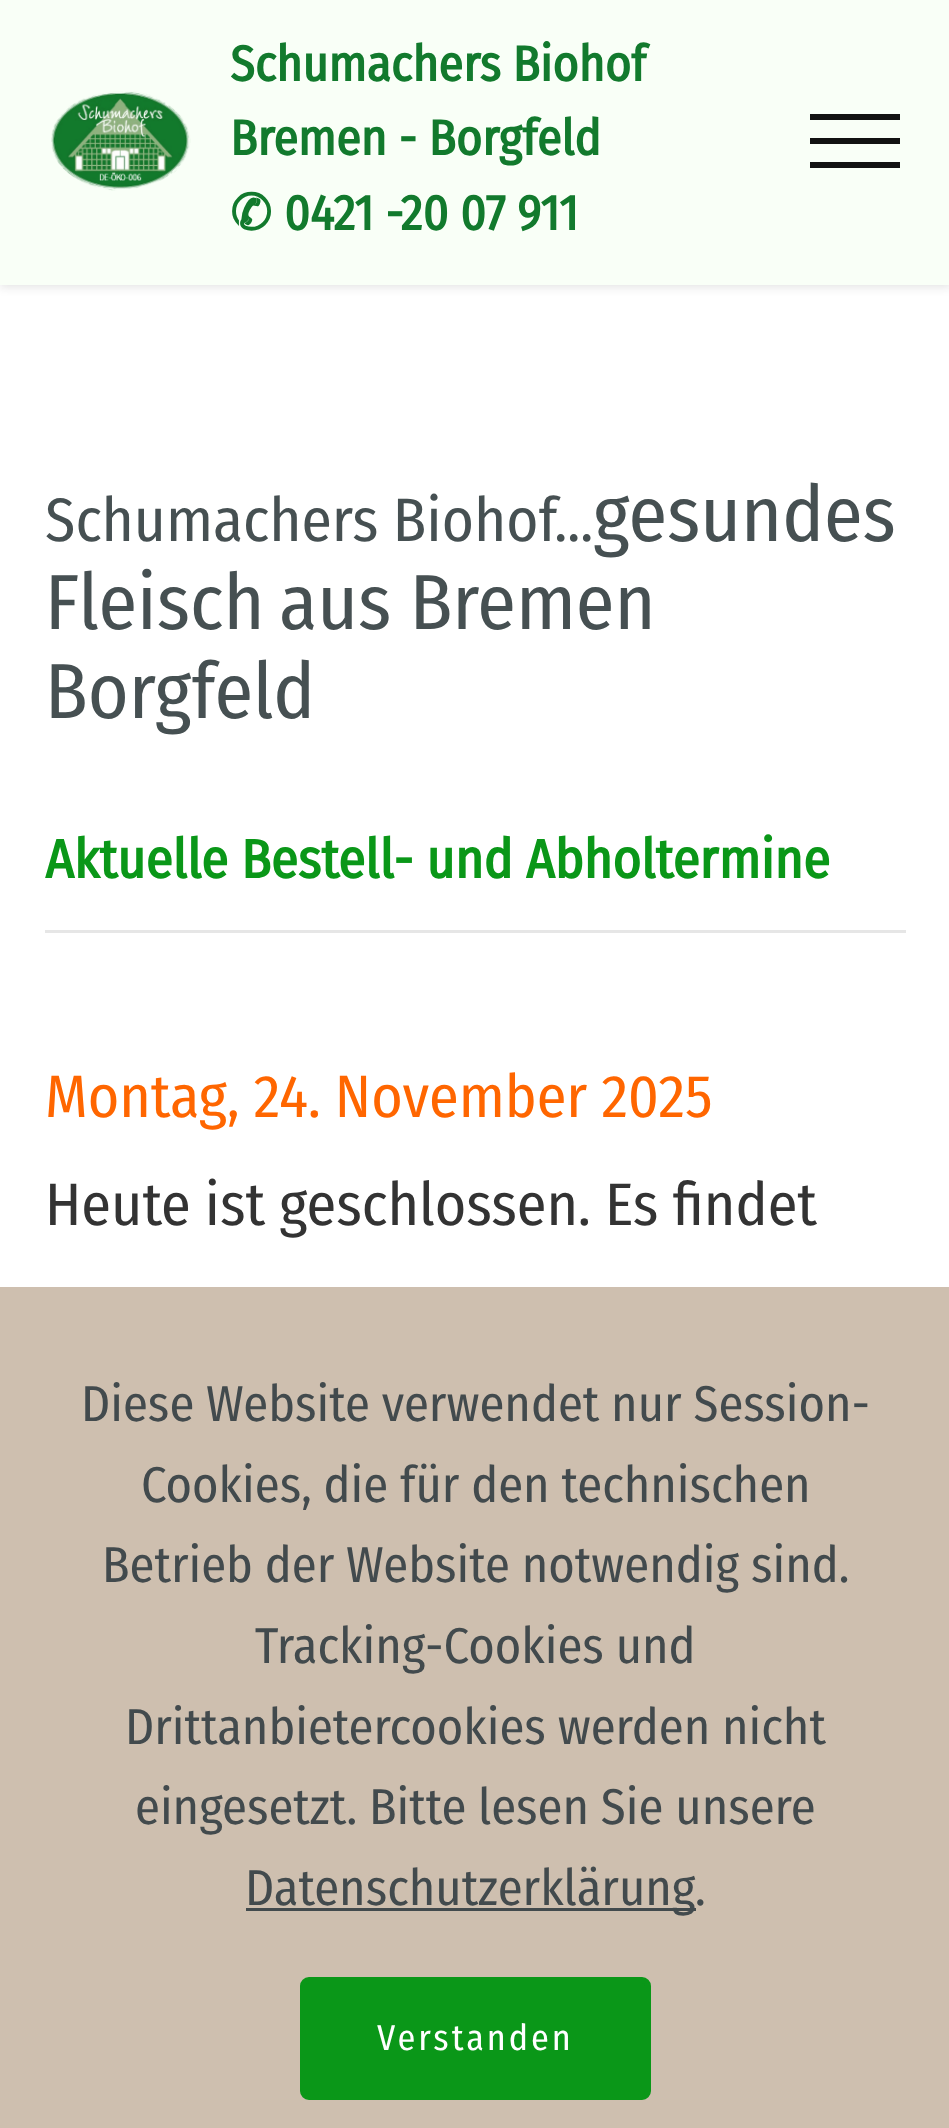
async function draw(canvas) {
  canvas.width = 949;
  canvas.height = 2128;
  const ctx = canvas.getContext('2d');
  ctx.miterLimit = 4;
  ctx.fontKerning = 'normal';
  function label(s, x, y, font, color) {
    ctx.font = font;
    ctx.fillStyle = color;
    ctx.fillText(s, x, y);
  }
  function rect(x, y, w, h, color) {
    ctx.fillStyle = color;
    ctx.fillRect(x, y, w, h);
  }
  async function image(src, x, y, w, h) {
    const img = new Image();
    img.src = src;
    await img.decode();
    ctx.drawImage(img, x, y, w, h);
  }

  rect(0, 0, 949, 2128, '#fff');
  ctx.fillStyle = '#1212121a';
  ctx.filter = 'blur(4.5px)';
  ctx.beginPath();
  ctx.rect(0, 3, 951, 285);
  ctx.fill();
  ctx.filter = 'none';
  rect(0, 0, 949, 285, '#f9fff7');
  await image('assets/img1.png', 51, 91, 140, 100);
  label('Schumachers Biohof', 230, 81, 'bold 49.75px Fira Sans Condensed', '#127a2d');
  label('Bremen - Borgfeld', 230, 155, 'bold 49.75px Fira Sans Condensed', '#127a2d');
  label('✆', 230, 230, 'bold 49.75px DejaVu Sans', '#127a2d');
  label('0421 -20 07 911', 284, 230, 'bold 49.75px Fira Sans Condensed', '#127a2d');
  rect(810, 114, 90, 6, '#121212');
  rect(810, 138, 90, 6, '#121212');
  rect(810, 162, 90, 6, '#121212');
  label('Schumachers Biohof...', 45, 541, '61.25px Fira Sans Condensed', '#465052');
  label('gesundes', 593, 541, '78px Fira Sans Condensed', '#465052');
  label('Fleisch', 45, 629, '78px Fira Sans Condensed', '#465052');
  label('aus Bremen', 279, 629, '78px Fira Sans Condensed', '#465052');
  label('Borgfeld', 45, 718, '78px Fira Sans Condensed', '#465052');
  label('Aktuelle Bestell- und Abholtermine', 45, 878, 'bold 54.6px Fira Sans Condensed', '#0a9718');
  rect(45, 930, 861, 3, '#e6e6e6');
  label('Montag, 24. November 2025', 45, 1117, '60px Fira Sans Condensed', '#f60');
  label('Heute ist geschlossen. Es findet', 45, 1225, '60px Fira Sans Condensed', '#333');
  rect(0, 1287, 949, 841, '#cebfaf');
  label('Diese Website verwendet nur Session-', 81, 1421, '50.4px Fira Sans Condensed', '#424a4d');
  label('Cookies, die für den technischen', 141, 1502, '50.4px Fira Sans Condensed', '#424a4d');
  label('Betrieb der Website notwendig sind.', 102, 1582, '50.4px Fira Sans Condensed', '#424a4d');
  label('Tracking-Cookies und', 255, 1663, '50.4px Fira Sans Condensed', '#424a4d');
  label('Drittanbietercookies werden nicht', 125, 1744, '50.4px Fira Sans Condensed', '#424a4d');
  label('eingesetzt. Bitte lesen Sie unsere', 135, 1824, '50.4px Fira Sans Condensed', '#424a4d');
  rect(246, 1908, 450, 3, '#424a4d');
  label('Datenschutzerklärung', 245, 1905, '50.4px Fira Sans Condensed', '#424a4d');
  label('.', 695, 1905, '50.4px Fira Sans Condensed', '#424a4d');
  ctx.fillStyle = '#0a9718';
  ctx.beginPath();
  ctx.roundRect(303, 1980, 345, 117, 6);
  ctx.fill();
  ctx.strokeStyle = '#0a9718';
  ctx.lineWidth = 6;
  ctx.stroke();
  ctx.letterSpacing = '3px';
  label('Verstanden', 377, 2050, '36px Fira Sans Condensed', '#fff');
}

draw(document.querySelector('canvas'));
